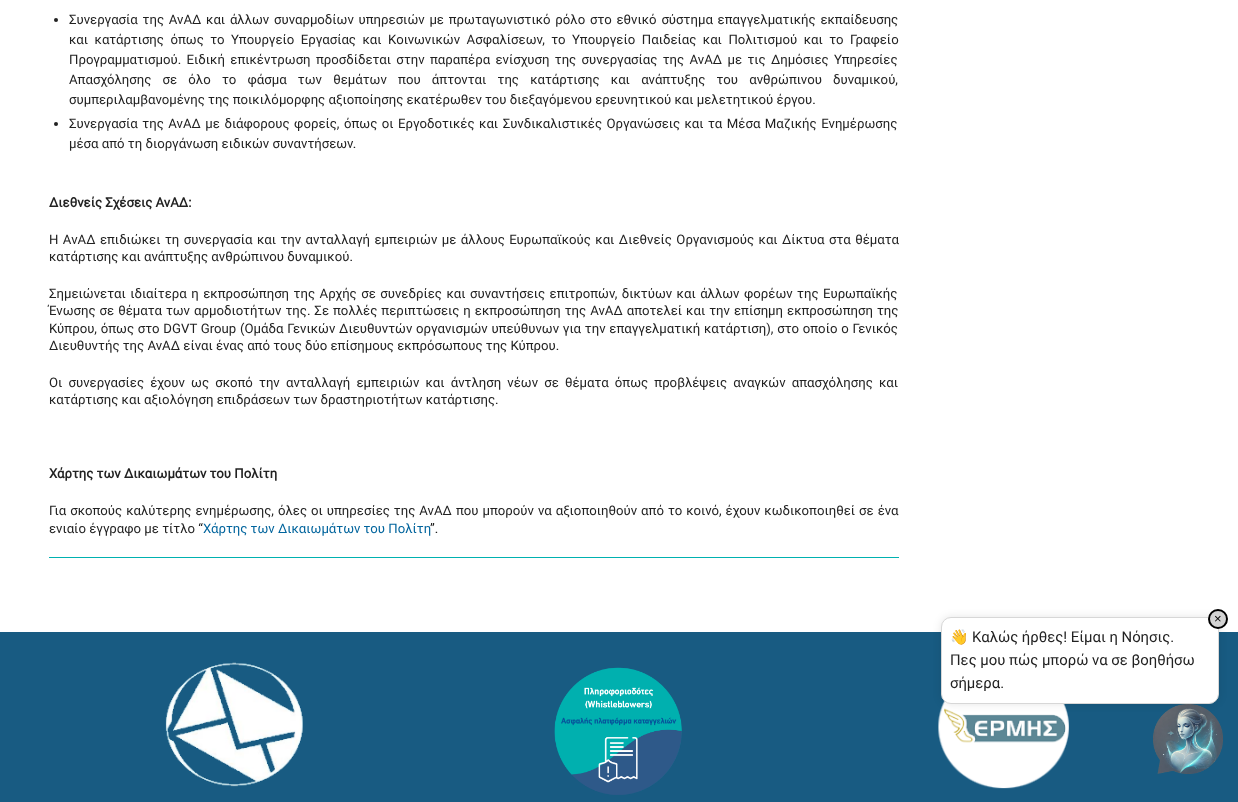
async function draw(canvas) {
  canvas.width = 1238;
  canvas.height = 802;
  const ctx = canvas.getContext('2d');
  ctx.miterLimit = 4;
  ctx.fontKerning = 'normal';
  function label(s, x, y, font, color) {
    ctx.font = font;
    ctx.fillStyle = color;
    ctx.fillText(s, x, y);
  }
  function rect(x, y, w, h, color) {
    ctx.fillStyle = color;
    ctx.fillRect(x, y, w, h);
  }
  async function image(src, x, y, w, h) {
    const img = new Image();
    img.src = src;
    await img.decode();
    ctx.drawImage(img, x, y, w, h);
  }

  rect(0, 0, 1238, 802, '#fff');
  rect(49, 557, 850, 1, '#00b1b0');
  ctx.fillStyle = '#222';
  ctx.beginPath();
  ctx.arc(56, 20, 2, 0, 2 * Math.PI);
  ctx.fill();
  ctx.wordSpacing = '1.5px';
  label('Συνεργασία της ΑνΑΔ και άλλων συναρμοδίων υπηρεσιών με πρωταγωνιστικό ρόλο στο εθνικό σύστημα επαγγελματικής εκπαίδευσης', 69, 24, '13.2px Roboto', '#222');
  ctx.wordSpacing = '3.25px';
  label('και κατάρτισης όπως το Υπουργείο Εργασίας και Κοινωνικών Ασφαλίσεων, το Υπουργείο Παιδείας και Πολιτισμού και το Γραφείο', 69, 44, '13.2px Roboto', '#222');
  ctx.wordSpacing = '2.1px';
  label('Προγραμματισμού. Ειδική επικέντρωση προσδίδεται στην παραπέρα ενίσχυση της συνεργασίας της ΑνΑΔ με τις Δημόσιες Υπηρεσίες', 69, 64, '13.2px Roboto', '#222');
  ctx.wordSpacing = '8px';
  label('Απασχόλησης σε όλο το φάσμα των θεμάτων που άπτονται της κατάρτισης και ανάπτυξης του ανθρώπινου δυναμικού,', 69, 84, '13.2px Roboto', '#222');
  ctx.wordSpacing = '0px';
  label('συμπεριλαμβανομένης της ποικιλόμορφης αξιοποίησης εκατέρωθεν του διεξαγόμενου ερευνητικού και μελετητικού έργου.', 69, 104, '13.2px Roboto', '#222');
  ctx.beginPath();
  ctx.arc(56, 124, 2, 0, 2 * Math.PI);
  ctx.fill();
  ctx.wordSpacing = '1.25px';
  label('Συνεργασία της ΑνΑΔ με διάφορους φορείς, όπως οι Εργοδοτικές και Συνδικαλιστικές Οργανώσεις και τα Μέσα Μαζικής Ενημέρωσης', 69, 128, '13.2px Roboto', '#222');
  ctx.wordSpacing = '0px';
  label('μέσα από τη διοργάνωση ειδικών συναντήσεων.', 69, 148, '13.2px Roboto', '#222');
  label('Διεθνείς Σχέσεις ΑνΑΔ:', 49, 207, 'bold 13.2px Roboto', '#222');
  ctx.wordSpacing = '1.2px';
  label('Η ΑνΑΔ επιδιώκει τη συνεργασία και την ανταλλαγή εμπειριών με άλλους Ευρωπαϊκούς και Διεθνείς Οργανισμούς και Δίκτυα στα θέματα', 49, 244, '13.2px Roboto', '#222');
  ctx.wordSpacing = '0px';
  label('κατάρτισης και ανάπτυξης ανθρώπινου δυναμικού.', 49, 261, '13.2px Roboto', '#222');
  ctx.wordSpacing = '1.25px';
  label('Σημειώνεται ιδιαίτερα η εκπροσώπηση της Αρχής σε συνεδρίες και συναντήσεις επιτροπών, δικτύων και άλλων φορέων της Ευρωπαϊκής', 49, 298, '13.2px Roboto', '#222');
  ctx.wordSpacing = '0.75px';
  label('Ένωσης σε θέματα των αρμοδιοτήτων της. Σε πολλές περιπτώσεις η εκπροσώπηση της ΑνΑΔ αποτελεί και την επίσημη εκπροσώπηση της', 49, 315, '13.2px Roboto', '#222');
  ctx.wordSpacing = '0.5px';
  label('Κύπρου, όπως στο DGVT Group (Ομάδα Γενικών Διευθυντών οργανισμών υπεύθυνων για την επαγγελματική κατάρτιση), στο οποίο ο Γενικός', 49, 333, '13.2px Roboto', '#222');
  ctx.wordSpacing = '0px';
  label('Διευθυντής της ΑνΑΔ είναι ένας από τους δύο επίσημους εκπρόσωπους της Κύπρου.', 49, 350, '13.2px Roboto', '#222');
  ctx.wordSpacing = '2.9px';
  label('Οι συνεργασίες έχουν ως σκοπό την ανταλλαγή εμπειριών και άντληση νέων σε θέματα όπως προβλέψεις αναγκών απασχόλησης και', 49, 387, '13.2px Roboto', '#222');
  ctx.wordSpacing = '0px';
  label('κατάρτισης και αξιολόγηση επιδράσεων των δραστηριοτήτων κατάρτισης.', 49, 404, '13.2px Roboto', '#222');
  label('Χάρτης των Δικαιωμάτων του Πολίτη', 49, 478, 'bold 13.2px Roboto', '#222');
  ctx.wordSpacing = '0.75px';
  label('Για σκοπούς καλύτερης ενημέρωσης, όλες οι υπηρεσίες της ΑνΑΔ που μπορούν να αξιοποιηθούν από το κοινό, έχουν κωδικοποιηθεί σε ένα', 49, 515, '13.2px Roboto', '#222');
  ctx.wordSpacing = '0px';
  label('ενιαίο έγγραφο με τίτλο “', 49, 533, '13.2px Roboto', '#222');
  label('Χάρτης των Δικαιωμάτων του Πολίτη', 203, 533, '13.2px Roboto', '#00649d');
  label('”.', 430, 533, '13.2px Roboto', '#222');
  rect(0, 632, 1238, 170, '#185b82');
  await image('assets/img1.png', 165, 662, 138, 125);
  await image('assets/img2.png', 554, 667, 128, 128);
  await image('assets/img3.png', 938, 701, 131, 88);
  ctx.fillStyle = '#0000001a';
  ctx.filter = 'blur(4px)';
  ctx.beginPath();
  ctx.roundRect(941, 617, 278, 87, 10);
  ctx.fill();
  ctx.filter = 'none';
  ctx.fillStyle = '#fff';
  ctx.beginPath();
  ctx.roundRect(941.5, 617.5, 277, 86, 9.5);
  ctx.fill();
  ctx.strokeStyle = '#d7d7d7';
  ctx.stroke();
  ctx.fillStyle = '#d3d3d3';
  ctx.beginPath();
  ctx.arc(1218, 619, 9, 0, 2 * Math.PI);
  ctx.fill();
  ctx.strokeStyle = '#000';
  ctx.lineWidth = 2;
  ctx.stroke();
  label('×', 1214, 623, '13px Liberation Sans', '#000');
  label('👋', 950, 642, '14.9px Noto Color Emoji', '#222');
  label('Καλώς ήρθες! Είμαι η Νόησις.', 972, 642, '14.9px Roboto', '#222');
  label('Πες μου πώς μπορώ να σε βοηθήσω', 950, 665, '14.9px Roboto', '#222');
  label('σήμερα.', 950, 688, '14.9px Roboto', '#222');
  await image('assets/img4.png', 1153, 704, 70, 70);
}

draw(document.querySelector('canvas'));
